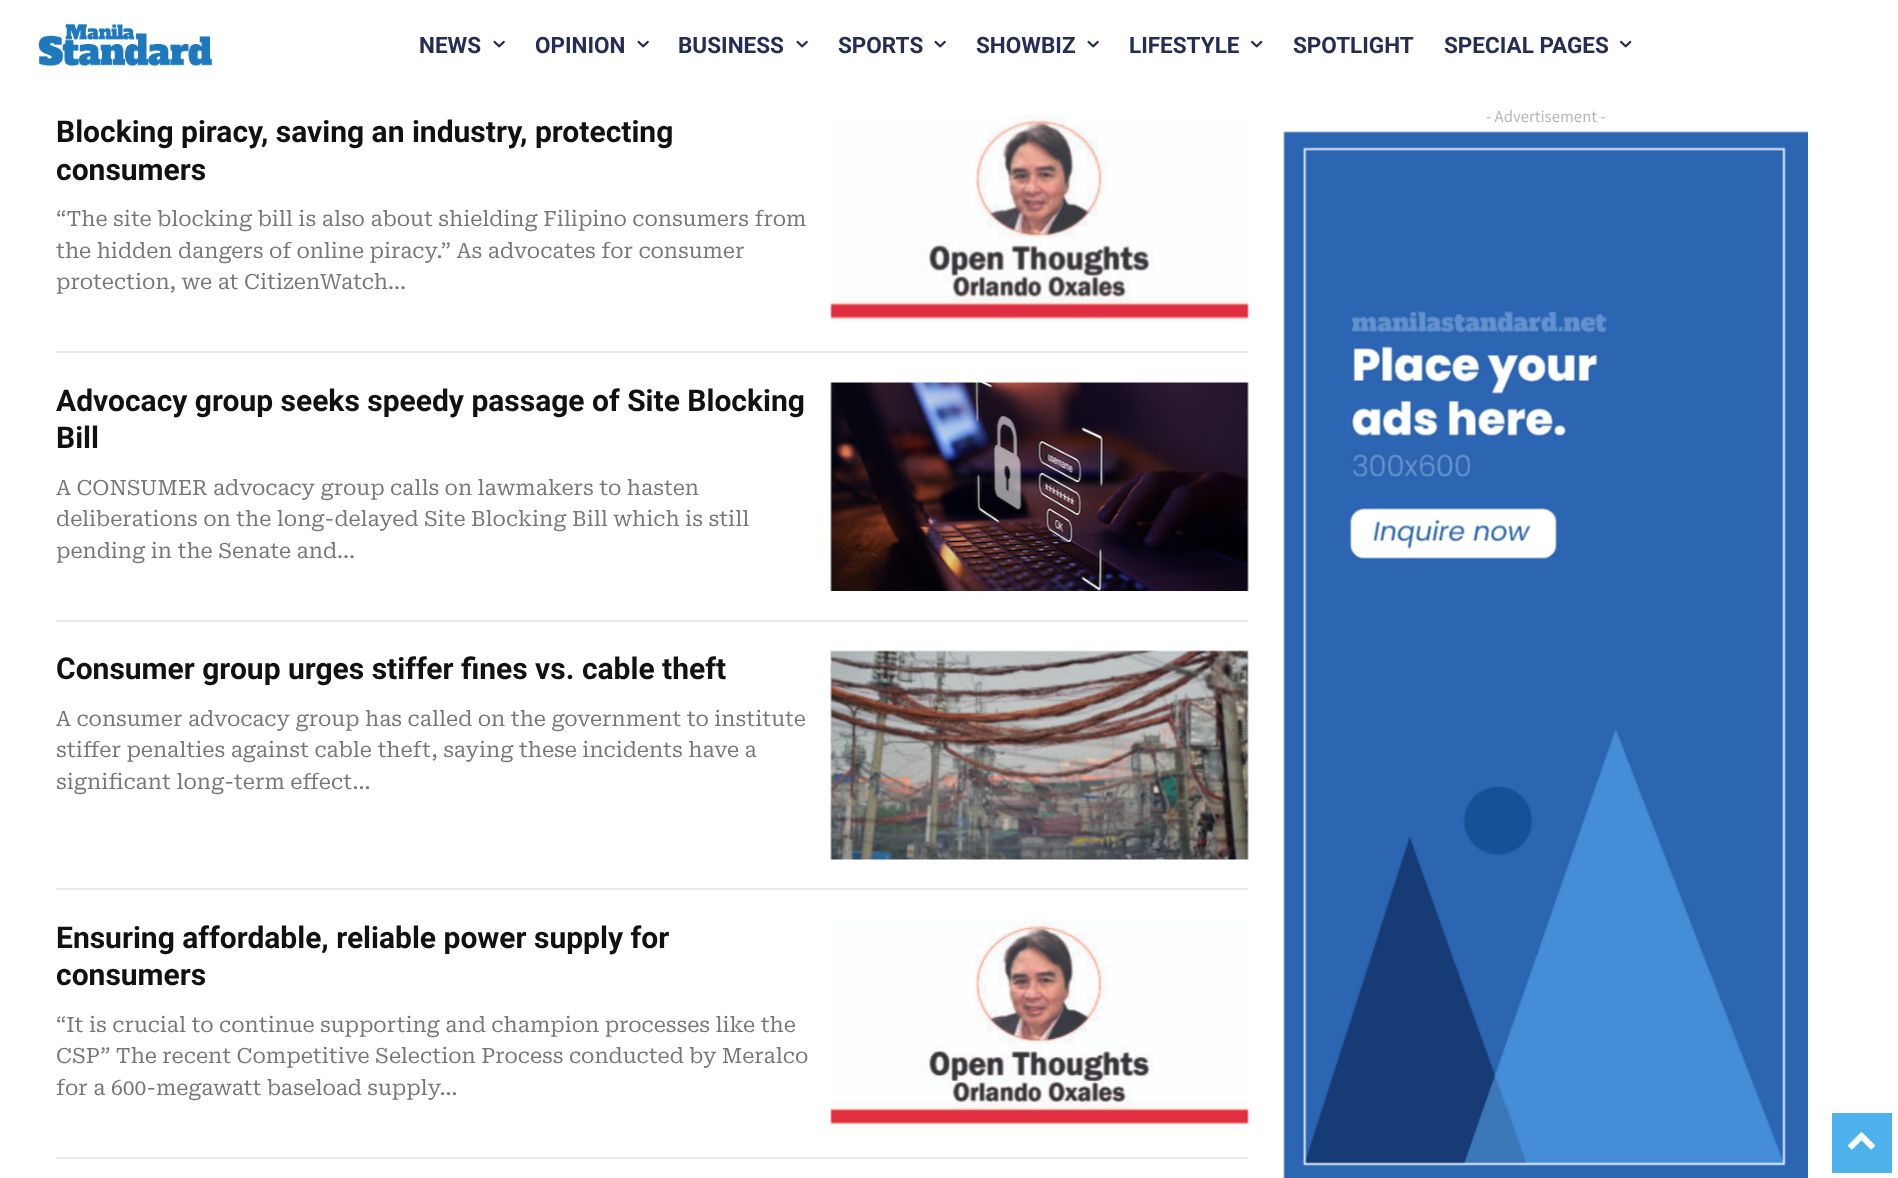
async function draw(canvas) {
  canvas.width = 1898;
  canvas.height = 1178;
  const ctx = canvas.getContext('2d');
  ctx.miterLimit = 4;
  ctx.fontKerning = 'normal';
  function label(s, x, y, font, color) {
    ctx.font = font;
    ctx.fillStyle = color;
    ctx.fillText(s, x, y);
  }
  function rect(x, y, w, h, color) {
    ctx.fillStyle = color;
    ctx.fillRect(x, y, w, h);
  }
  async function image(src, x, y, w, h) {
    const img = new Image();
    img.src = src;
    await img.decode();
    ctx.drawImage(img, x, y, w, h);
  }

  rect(0, 0, 1898, 1178, '#fff');
  await image('assets/img1.png', 38, 24, 175, 42);
  label('NEWS', 419, 53, 'bold 22.5px Roboto', '#252d56');
  await image('assets/img2.png', 493, 40, 12, 8);
  label('OPINION', 535, 53, 'bold 22.5px Roboto', '#252d56');
  await image('assets/img2.png', 637, 40, 12, 8);
  label('BUSINESS', 678, 53, 'bold 22.5px Roboto', '#252d56');
  await image('assets/img2.png', 796, 40, 12, 8);
  label('SPORTS', 838, 53, 'bold 22.5px Roboto', '#252d56');
  await image('assets/img2.png', 934, 40, 12, 8);
  label('SHOWBIZ', 976, 53, 'bold 22.5px Roboto', '#252d56');
  await image('assets/img2.png', 1087, 40, 12, 8);
  label('LIFESTYLE', 1129, 53, 'bold 22.5px Roboto', '#252d56');
  await image('assets/img3.png', 1251, 40, 12, 8);
  label('SPOTLIGHT', 1293, 53, 'bold 22.5px Roboto', '#252d56');
  label('SPECIAL PAGES', 1444, 53, 'bold 22.5px Roboto', '#252d56');
  await image('assets/img3.png', 1620, 40, 12, 8);
  label('- Advertisement -', 1486, 122, '15px Noto Sans JP', '#b7b7b7');
  await image('assets/img4.png', 1283, 131, 525, 1047);
  label('Blocking piracy, saving an industry, protecting', 56, 142, 'bold 30px Roboto', '#111');
  label('consumers', 56, 180, 'bold 30px Roboto', '#111');
  label('“The site blocking bill is also about shielding Filipino consumers from', 56, 226, '21px Roboto Serif', '#767676');
  label('the hidden dangers of online piracy.” As advocates for consumer', 56, 258, '21px Roboto Serif', '#767676');
  label('protection, we at CitizenWatch...', 56, 289, '21px Roboto Serif', '#767676');
  await image('assets/img5.png', 830, 115, 419, 208);
  rect(56, 351, 1192, 2, '#e8e8e8');
  label('Advocacy group seeks speedy passage of Site Blocking', 56, 411, 'bold 30px Roboto', '#111');
  label('Bill', 56, 448, 'bold 30px Roboto', '#111');
  label('A CONSUMER advocacy group calls on lawmakers to hasten', 56, 495, '21px Roboto Serif', '#767676');
  label('deliberations on the long-delayed Site Blocking Bill which is still', 56, 526, '21px Roboto Serif', '#767676');
  label('pending in the Senate and...', 56, 558, '21px Roboto Serif', '#767676');
  await image('assets/img6.png', 830, 382, 419, 209);
  rect(56, 620, 1192, 2, '#e8e8e8');
  label('Consumer group urges stiffer fines vs. cable theft', 56, 679, 'bold 30px Roboto', '#111');
  label('A consumer advocacy group has called on the government to institute', 56, 726, '21px Roboto Serif', '#767676');
  label('stiffer penalties against cable theft, saying these incidents have a', 56, 757, '21px Roboto Serif', '#767676');
  label('significant long-term effect...', 56, 789, '21px Roboto Serif', '#767676');
  await image('assets/img7.png', 830, 650, 419, 210);
  rect(56, 888, 1192, 2, '#e8e8e8');
  label('Ensuring affordable, reliable power supply for', 56, 948, 'bold 30px Roboto', '#111');
  label('consumers', 56, 985, 'bold 30px Roboto', '#111');
  label('“It is crucial to continue supporting and champion processes like the', 56, 1032, '21px Roboto Serif', '#767676');
  label('CSP” The recent Competitive Selection Process conducted by Meralco', 56, 1063, '21px Roboto Serif', '#767676');
  label('for a 600-megawatt baseload supply...', 56, 1095, '21px Roboto Serif', '#767676');
  await image('assets/img8.png', 830, 920, 419, 208);
  rect(56, 1157, 1192, 2, '#e8e8e8');
  rect(1832, 1113, 60, 60, '#4db2ec');
  await image('assets/img9.png', 1848, 1132, 27, 18);
}

draw(document.querySelector('canvas'));
